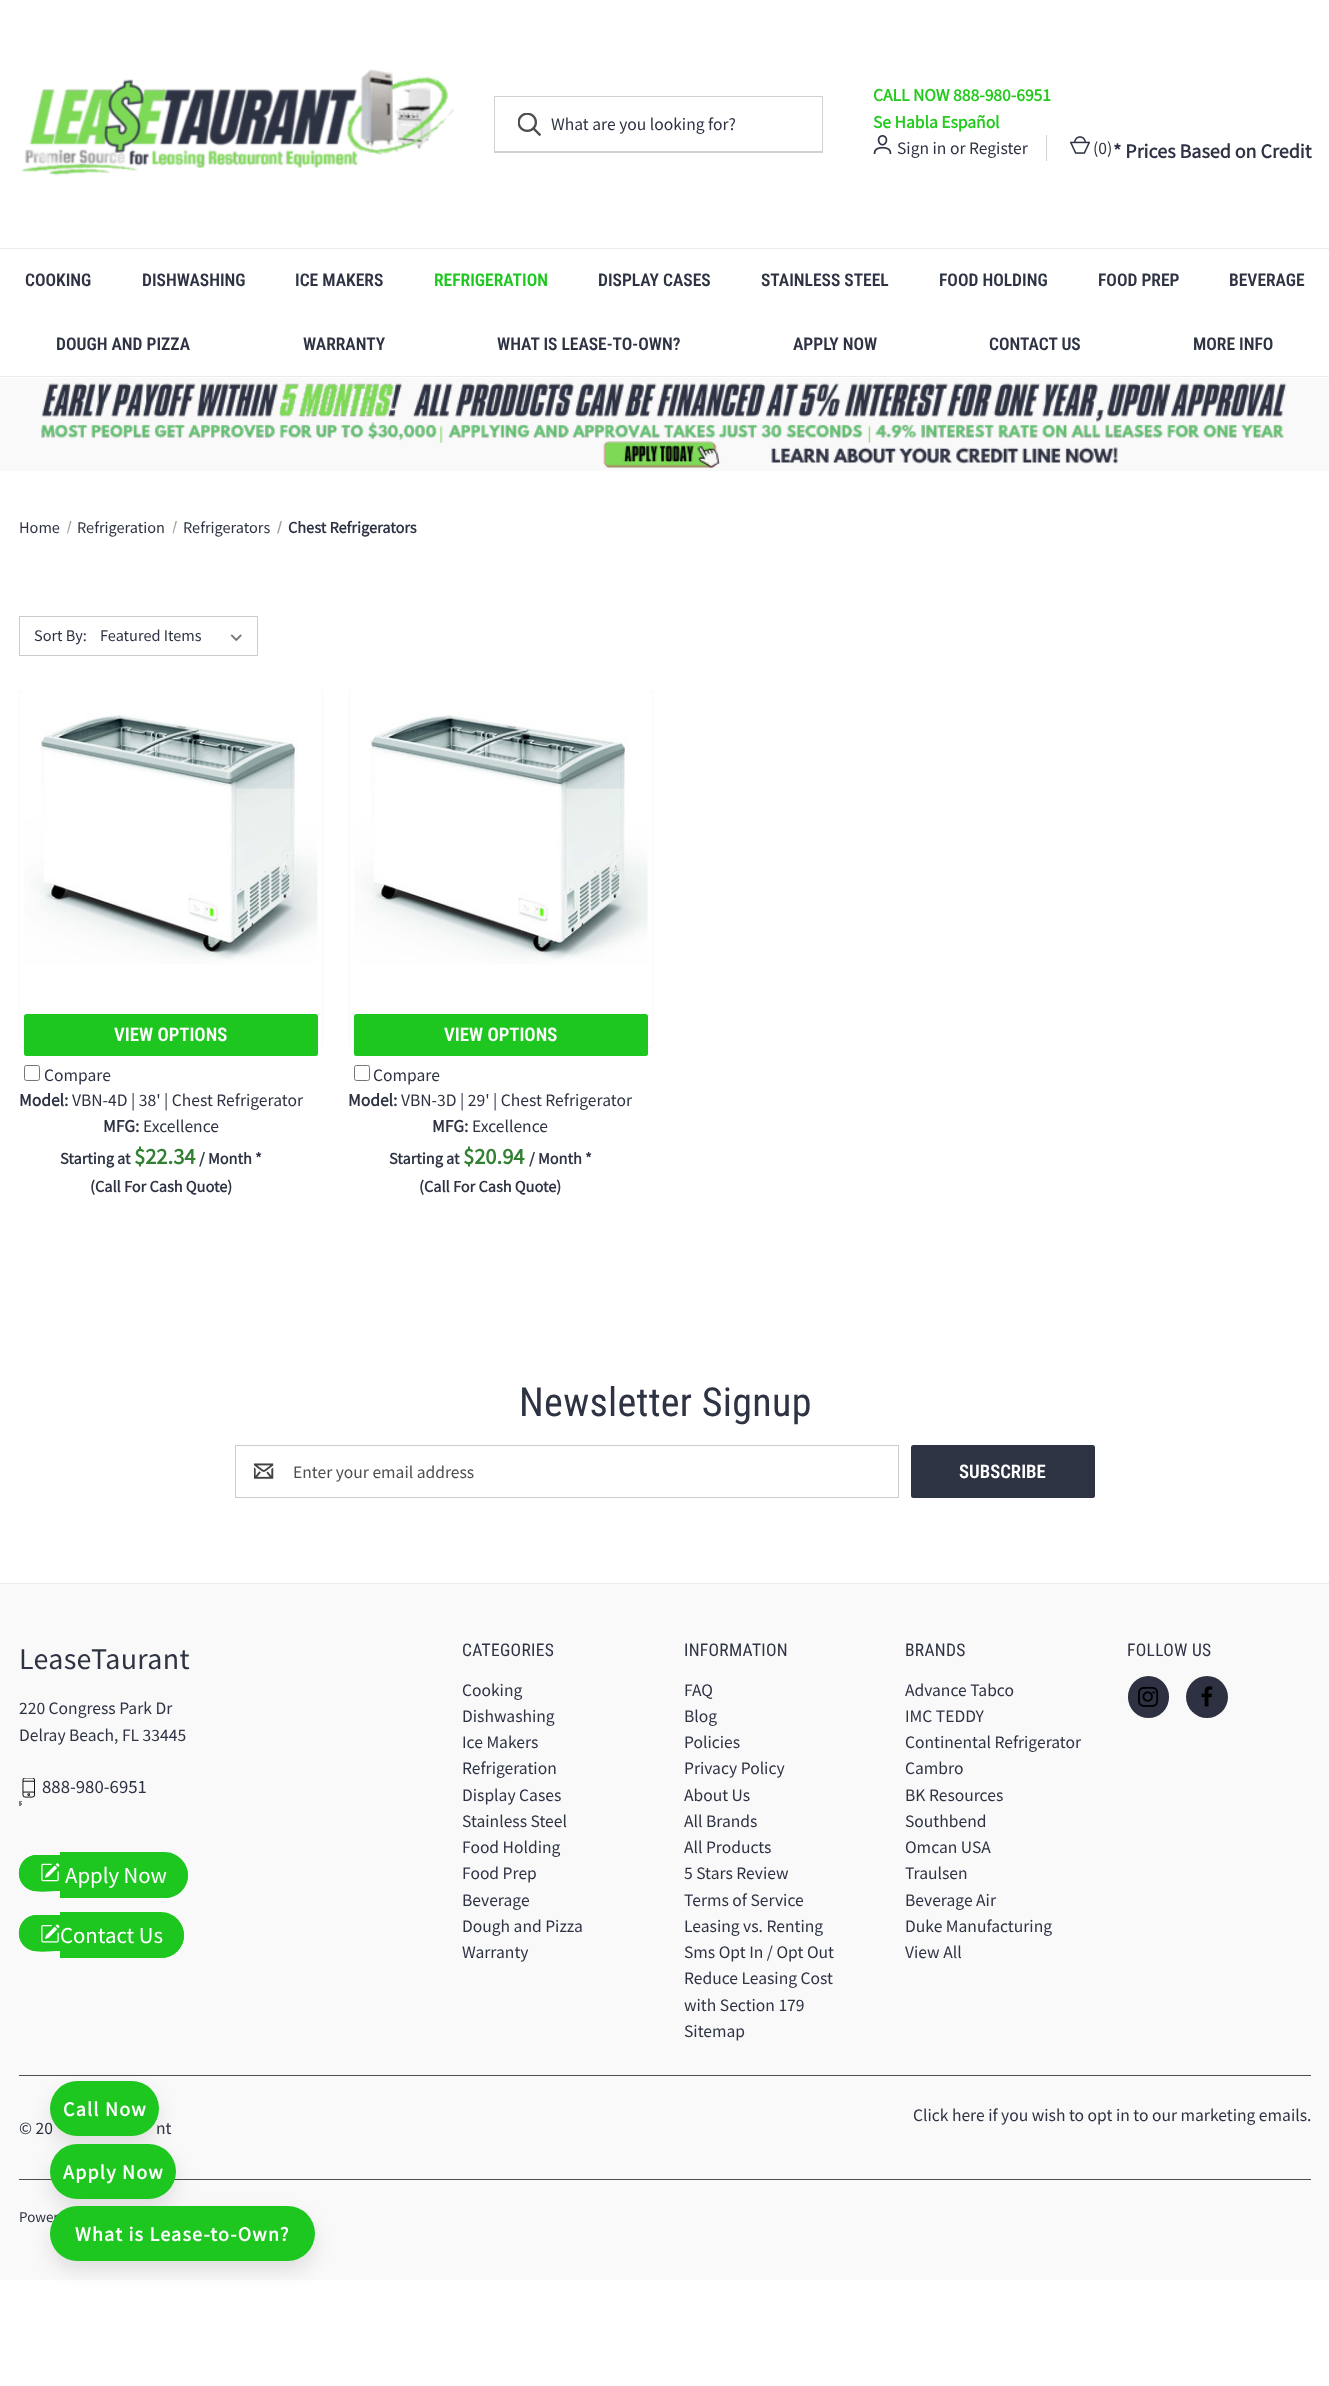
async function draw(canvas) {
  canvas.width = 1329;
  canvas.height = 2386;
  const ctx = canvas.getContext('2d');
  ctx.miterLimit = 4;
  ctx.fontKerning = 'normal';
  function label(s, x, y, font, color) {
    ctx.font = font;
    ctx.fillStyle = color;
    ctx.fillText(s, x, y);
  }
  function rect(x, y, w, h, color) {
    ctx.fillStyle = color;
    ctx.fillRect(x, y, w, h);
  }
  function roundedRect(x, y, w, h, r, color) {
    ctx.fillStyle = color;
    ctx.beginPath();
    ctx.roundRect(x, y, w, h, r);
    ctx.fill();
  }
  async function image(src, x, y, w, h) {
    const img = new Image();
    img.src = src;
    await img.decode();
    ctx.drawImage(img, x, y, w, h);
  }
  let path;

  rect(0, 0, 1329, 2386, '#fff');
  await image('assets/img1.png', 21, 69, 433, 107);
  ctx.strokeStyle = '#d2d2d2';
  ctx.strokeRect(494.5, 96.5, 328, 56);
  await image('assets/img2.png', 518, 113, 23, 23);
  label('What are you looking for?', 551, 130, '17.5px Source Sans Pro', '#2e3344');
  rect(494, 151, 329, 1, '#d2d2d2');
  label('CALL NOW 888-980-6951', 873, 101, 'bold 17.5px Source Sans Pro', '#24ca1e');
  label('Se Habla Español', 873, 128, 'bold 17.5px Source Sans Pro', '#24ca1e');
  await image('assets/img3.png', 873, 135, 19, 19);
  label('Sign in', 897, 154, '17.5px Source Sans Pro', '#2e3344');
  label('or', 950, 154, '17.5px Source Sans Pro', '#2e3344');
  label('Register', 969, 154, '17.5px Source Sans Pro', '#2e3344');
  rect(1046, 135, 1, 26, '#d2d2d2');
  await image('assets/img4.png', 1070, 136, 20, 18);
  label('(0)', 1093, 154, '17.5px Source Sans Pro', '#2e3344');
  label('* Prices Based on Credit', 1113, 158, 'bold 20px Source Sans Pro', '#2e3344');
  rect(0, 248, 1329, 1, '#ebebeb');
  rect(0, 376, 1329, 1, '#ebebeb');
  label('COOKING', 25, 286, '600 17.5px Roboto Condensed', '#2e3344');
  label('DISHWASHING', 142, 286, '600 17.5px Roboto Condensed', '#2e3344');
  label('ICE MAKERS', 295, 286, '600 17.5px Roboto Condensed', '#2e3344');
  label('REFRIGERATION', 434, 286, '600 17.5px Roboto Condensed', '#1dc71f');
  label('DISPLAY CASES', 598, 286, '600 17.5px Roboto Condensed', '#2e3344');
  label('STAINLESS STEEL', 761, 286, '600 17.5px Roboto Condensed', '#2e3344');
  label('FOOD HOLDING', 939, 286, '600 17.5px Roboto Condensed', '#2e3344');
  label('FOOD PREP', 1098, 286, '600 17.5px Roboto Condensed', '#2e3344');
  label('BEVERAGE', 1229, 286, '600 17.5px Roboto Condensed', '#2e3344');
  label('DOUGH AND PIZZA', 56, 350, '600 17.5px Roboto Condensed', '#2e3344');
  label('WARRANTY', 303, 350, '600 17.5px Roboto Condensed', '#2e3344');
  label('WHAT IS LEASE-TO-OWN?', 497, 350, '600 17.5px Roboto Condensed', '#2e3344');
  label('APPLY NOW', 793, 350, '600 17.5px Roboto Condensed', '#2e3344');
  label('CONTACT US', 989, 350, '600 17.5px Roboto Condensed', '#2e3344');
  label('MORE INFO', 1193, 350, '600 17.5px Roboto Condensed', '#2e3344');
  rect(0, 378, 1329, 93, '#f9f9f9');
  await image('assets/img5.png', 41, 383, 1246, 85);
  label('Home', 19, 533, '16.25px Source Sans Pro', '#2e3344');
  ctx.fillStyle = '#a3a3a3';
  path = new Path2D('M70 521H71.5L68 533.5H67Z');
  ctx.fill(path);
  label('Refrigeration', 77, 533, '16.25px Source Sans Pro', '#2e3344');
  ctx.fillStyle = '#a3a3a3';
  path = new Path2D('M175.5 521H177L173.5 533.5H172.5Z');
  ctx.fill(path);
  label('Refrigerators', 183, 533, '16.25px Source Sans Pro', '#2e3344');
  ctx.fillStyle = '#a3a3a3';
  path = new Path2D('M280.5 521H282L278.5 533.5H277Z');
  ctx.fill(path);
  label('Chest Refrigerators', 288, 533, 'bold 16.25px Source Sans Pro', '#2e3344');
  ctx.strokeStyle = '#ccc';
  ctx.strokeRect(19.5, 616.5, 238, 39);
  label('Sort By:', 34, 641, '16.25px Source Sans Pro', '#2e3344');
  await image('assets/img6.png', 230, 634, 12, 8);
  label('Featured Items', 100, 641, '16.25px Source Sans Pro', '#2e3344');
  ctx.strokeStyle = '#f9f9f9';
  ctx.strokeRect(19.5, 691.5, 303, 356);
  await image('assets/img7.png', 24, 691, 294, 273);
  roundedRect(24, 1014, 294, 42, 2.5, '#1dc71f');
  label('VIEW OPTIONS', 114, 1041, '600 18.75px Roboto Condensed', '#fff');
  ctx.beginPath();
  ctx.roundRect(24.5, 1065.5, 15, 15, 2);
  ctx.strokeStyle = '#767676';
  ctx.stroke();
  label('Compare', 44, 1081, '17.5px Source Sans Pro', '#2e3344');
  label('Model:', 19, 1106, 'bold 17.5px Source Sans Pro', '#2e3344');
  label('VBN-4D | 38\' | Chest Refrigerator', 72, 1106, '17.5px Source Sans Pro', '#2e3344');
  label('MFG:', 103, 1132, 'bold 17.5px Source Sans Pro', '#2e3344');
  label('Excellence', 143, 1132, '17.5px Source Sans Pro', '#2e3344');
  label('Starting at', 60, 1164, 'bold 16.25px Source Sans Pro', '#2e3344');
  label('$22.34', 134, 1164, 'bold 22.5px Source Sans Pro', '#328032');
  label('/ Month *', 199, 1164, 'bold 16.25px Source Sans Pro', '#2e3344');
  label('(Call For Cash Quote)', 90, 1192, 'bold 16.25px Source Sans Pro', '#2e3344');
  ctx.strokeStyle = '#f9f9f9';
  ctx.strokeRect(349.5, 691.5, 303, 356);
  await image('assets/img8.png', 354, 691, 294, 273);
  roundedRect(354, 1014, 294, 42, 2.5, '#1dc71f');
  label('VIEW OPTIONS', 444, 1041, '600 18.75px Roboto Condensed', '#fff');
  ctx.beginPath();
  ctx.roundRect(354.5, 1065.5, 15, 15, 2);
  ctx.strokeStyle = '#767676';
  ctx.stroke();
  label('Compare', 373, 1081, '17.5px Source Sans Pro', '#2e3344');
  label('Model:', 348, 1106, 'bold 17.5px Source Sans Pro', '#2e3344');
  label('VBN-3D | 29\' | Chest Refrigerator', 401, 1106, '17.5px Source Sans Pro', '#2e3344');
  label('MFG:', 432, 1132, 'bold 17.5px Source Sans Pro', '#2e3344');
  label('Excellence', 472, 1132, '17.5px Source Sans Pro', '#2e3344');
  label('Starting at', 389, 1164, 'bold 16.25px Source Sans Pro', '#2e3344');
  label('$20.94', 463, 1164, 'bold 22.5px Source Sans Pro', '#328032');
  label('/ Month *', 529, 1164, 'bold 16.25px Source Sans Pro', '#2e3344');
  label('(Call For Cash Quote)', 419, 1192, 'bold 16.25px Source Sans Pro', '#2e3344');
  ctx.letterSpacing = '0.3px';
  label('Newsletter Signup', 519, 1416, '40px Roboto Condensed', '#2e3344');
  ctx.strokeStyle = '#ccc';
  ctx.strokeRect(235.5, 1445.5, 663, 52);
  await image('assets/img9.png', 254, 1463, 20, 16);
  ctx.letterSpacing = '0px';
  label('Enter your email address', 293, 1478, '17.5px Source Sans Pro', '#4e4e4e');
  roundedRect(911, 1445, 184, 53, 2.5, '#2e3344');
  label('SUBSCRIBE', 959, 1478, '600 18.75px Roboto Condensed', '#fff');
  rect(0, 1584, 1329, 696, '#f9f9f9');
  rect(0, 1583, 1329, 1, '#ebebeb');
  ctx.letterSpacing = '0.3px';
  label('LeaseTaurant', 19, 1669, '30px Source Sans Pro', '#2e3344');
  ctx.letterSpacing = '0px';
  label('220 Congress Park Dr', 19, 1714, '17.5px Source Sans Pro', '#2e3344');
  label('Delray Beach, FL 33445', 19, 1741, '17.5px Source Sans Pro', '#2e3344');
  await image('assets/img10.png', 22, 1778, 13, 20);
  label('888-980-6951', 42, 1793, '18.75px Source Sans Pro', '#2e3344');
  rect(19, 1801, 3, 1, '#808080');
  rect(20, 1801, 1, 4, '#808080');
  rect(19, 1804, 3, 1, '#808080');
  rect(19, 1801, 1, 4, '#808080');
  rect(19, 1803, 3, 1, '#808080');
  rect(19, 1803, 2, 3, '#808080');
  ctx.fillStyle = '#1dc71f';
  ctx.beginPath();
  ctx.roundRect(19, 1855, 41, 36, [18, 0, 0, 18]);
  ctx.fill();
  path = new Path2D('M37 1855H60V1891C52 1891 37 1893 30 1890C12 1882 17 1855 37 1855ZM37 1859H60V1888C53 1888 37 1889 31 1886C17 1880 21 1859 37 1859Z');
  ctx.fill(path, 'evenodd');
  await image('assets/img11.png', 41, 1863, 19, 19);
  ctx.beginPath();
  ctx.roundRect(60, 1853, 128, 45, [0, 22.5, 22.5, 0]);
  ctx.fill();
  path = new Path2D('M60 1852H165C177 1852 188 1863 188 1875C188 1887 177 1898 165 1898H60ZM60 1856H165C175 1856 184 1865 184 1875C184 1885 175 1894 165 1894H60Z');
  ctx.fill(path, 'evenodd');
  label('Apply Now', 65, 1883, '22.75px Source Sans Pro', '#fff');
  ctx.fillStyle = '#1dc71f';
  ctx.beginPath();
  ctx.roundRect(19, 1915, 41, 36, [18, 0, 0, 18]);
  ctx.fill();
  path = new Path2D('M37 1915H60V1951C52 1951 37 1953 30 1950C12 1942 17 1915 37 1915ZM37 1919H60V1948C53 1948 37 1949 31 1946C17 1940 21 1919 37 1919Z');
  ctx.fill(path, 'evenodd');
  await image('assets/img12.png', 41, 1924, 19, 19);
  ctx.beginPath();
  ctx.roundRect(60, 1913, 124, 45, [0, 22.5, 22.5, 0]);
  ctx.fill();
  path = new Path2D('M60 1912H161C174 1912 184 1923 184 1935C184 1947 174 1958 161 1958H60ZM60 1916H161C172 1916 180 1925 180 1935C180 1945 172 1954 161 1954H60Z');
  ctx.fill(path, 'evenodd');
  label('Contact Us', 60, 1943, '22.75px Source Sans Pro', '#fff');
  ctx.letterSpacing = '0.3px';
  label('CATEGORIES', 462, 1656, '17.5px Roboto Condensed', '#2e3344');
  ctx.letterSpacing = '0px';
  label('Cooking', 462, 1696, '17.5px Source Sans Pro', '#2e3344');
  label('Dishwashing', 462, 1722, '17.5px Source Sans Pro', '#2e3344');
  label('Ice Makers', 462, 1748, '17.5px Source Sans Pro', '#2e3344');
  label('Refrigeration', 462, 1774, '17.5px Source Sans Pro', '#2e3344');
  label('Display Cases', 462, 1801, '17.5px Source Sans Pro', '#2e3344');
  label('Stainless Steel', 462, 1827, '17.5px Source Sans Pro', '#2e3344');
  label('Food Holding', 462, 1853, '17.5px Source Sans Pro', '#2e3344');
  label('Food Prep', 462, 1879, '17.5px Source Sans Pro', '#2e3344');
  label('Beverage', 462, 1906, '17.5px Source Sans Pro', '#2e3344');
  label('Dough and Pizza', 462, 1932, '17.5px Source Sans Pro', '#2e3344');
  label('Warranty', 462, 1958, '17.5px Source Sans Pro', '#2e3344');
  ctx.letterSpacing = '0.3px';
  label('INFORMATION', 684, 1656, '17.5px Roboto Condensed', '#2e3344');
  ctx.letterSpacing = '0px';
  label('FAQ', 684, 1696, '17.5px Source Sans Pro', '#2e3344');
  label('Blog', 684, 1722, '17.5px Source Sans Pro', '#2e3344');
  label('Policies', 684, 1748, '17.5px Source Sans Pro', '#2e3344');
  label('Privacy Policy', 684, 1774, '17.5px Source Sans Pro', '#2e3344');
  label('About Us', 684, 1801, '17.5px Source Sans Pro', '#2e3344');
  label('All Brands', 684, 1827, '17.5px Source Sans Pro', '#2e3344');
  label('All Products', 684, 1853, '17.5px Source Sans Pro', '#2e3344');
  label('5 Stars Review', 684, 1879, '17.5px Source Sans Pro', '#2e3344');
  label('Terms of Service', 684, 1906, '17.5px Source Sans Pro', '#2e3344');
  label('Leasing vs. Renting', 684, 1932, '17.5px Source Sans Pro', '#2e3344');
  label('Sms Opt In / Opt Out', 684, 1958, '17.5px Source Sans Pro', '#2e3344');
  label('Reduce Leasing Cost', 684, 1984, '17.5px Source Sans Pro', '#2e3344');
  label('with Section 179', 684, 2011, '17.5px Source Sans Pro', '#2e3344');
  label('Sitemap', 684, 2037, '17.5px Source Sans Pro', '#2e3344');
  ctx.letterSpacing = '0.3px';
  label('BRANDS', 905, 1656, '17.5px Roboto Condensed', '#2e3344');
  ctx.letterSpacing = '0px';
  label('Advance Tabco', 905, 1696, '17.5px Source Sans Pro', '#2e3344');
  label('IMC TEDDY', 905, 1722, '17.5px Source Sans Pro', '#2e3344');
  label('Continental Refrigerator', 905, 1748, '17.5px Source Sans Pro', '#2e3344');
  label('Cambro', 905, 1774, '17.5px Source Sans Pro', '#2e3344');
  label('BK Resources', 905, 1801, '17.5px Source Sans Pro', '#2e3344');
  label('Southbend', 905, 1827, '17.5px Source Sans Pro', '#2e3344');
  label('Omcan USA', 905, 1853, '17.5px Source Sans Pro', '#2e3344');
  label('Traulsen', 905, 1879, '17.5px Source Sans Pro', '#2e3344');
  label('Beverage Air', 905, 1906, '17.5px Source Sans Pro', '#2e3344');
  label('Duke Manufacturing', 905, 1932, '17.5px Source Sans Pro', '#2e3344');
  label('View All', 905, 1958, '17.5px Source Sans Pro', '#2e3344');
  ctx.letterSpacing = '0.3px';
  label('FOLLOW US', 1127, 1656, '17.5px Roboto Condensed', '#2e3344');
  roundedRect(1128, 1676, 41, 42, 20.5, '#2d3141');
  await image('assets/img13.png', 1138, 1686, 21, 21);
  ctx.beginPath();
  ctx.arc(1207, 1697, 21, 0, 2 * Math.PI);
  ctx.fill();
  await image('assets/img14.png', 1201, 1686, 12, 21);
  rect(19, 2075, 1292, 1, '#4e4e4e');
  ctx.letterSpacing = '0px';
  label('Click here if you wish to opt in to our marketing emails.', 913, 2121, '17.5px Source Sans Pro', '#2e3344');
  label('© 20', 19, 2134, '17.5px Source Sans Pro', '#2e3344');
  label('nt', 156, 2134, '17.5px Source Sans Pro', '#2e3344');
  rect(19, 2179, 1292, 1, '#4e4e4e');
  label('Power', 19, 2222, '15px Source Sans Pro', '#2e3344');
  ctx.fillStyle = '#0000001a';
  ctx.filter = 'blur(9.5px)';
  ctx.beginPath();
  ctx.roundRect(50, 2091, 109, 55, 27.5);
  ctx.fill();
  ctx.filter = 'none';
  roundedRect(50, 2081, 109, 55, 27.5, '#1dc71f');
  ctx.letterSpacing = '1.25px';
  label('Call Now', 63, 2116, 'bold 20px Source Sans Pro', '#fff');
  ctx.fillStyle = '#0000001a';
  ctx.filter = 'blur(9.5px)';
  ctx.beginPath();
  ctx.roundRect(50, 2154, 126, 55, 27.5);
  ctx.fill();
  ctx.filter = 'none';
  roundedRect(50, 2144, 126, 55, 27.5, '#1dc71f');
  label('Apply Now', 63, 2179, 'bold 20px Source Sans Pro', '#fff');
  ctx.fillStyle = '#0000001a';
  ctx.filter = 'blur(9.5px)';
  ctx.beginPath();
  ctx.roundRect(50, 2216, 265, 55, 27.5);
  ctx.fill();
  ctx.filter = 'none';
  roundedRect(50, 2206, 265, 55, 27.5, '#1dc71f');
  label('What is Lease-to-Own?', 75, 2241, 'bold 20px Source Sans Pro', '#fff');
}

draw(document.querySelector('canvas'));
